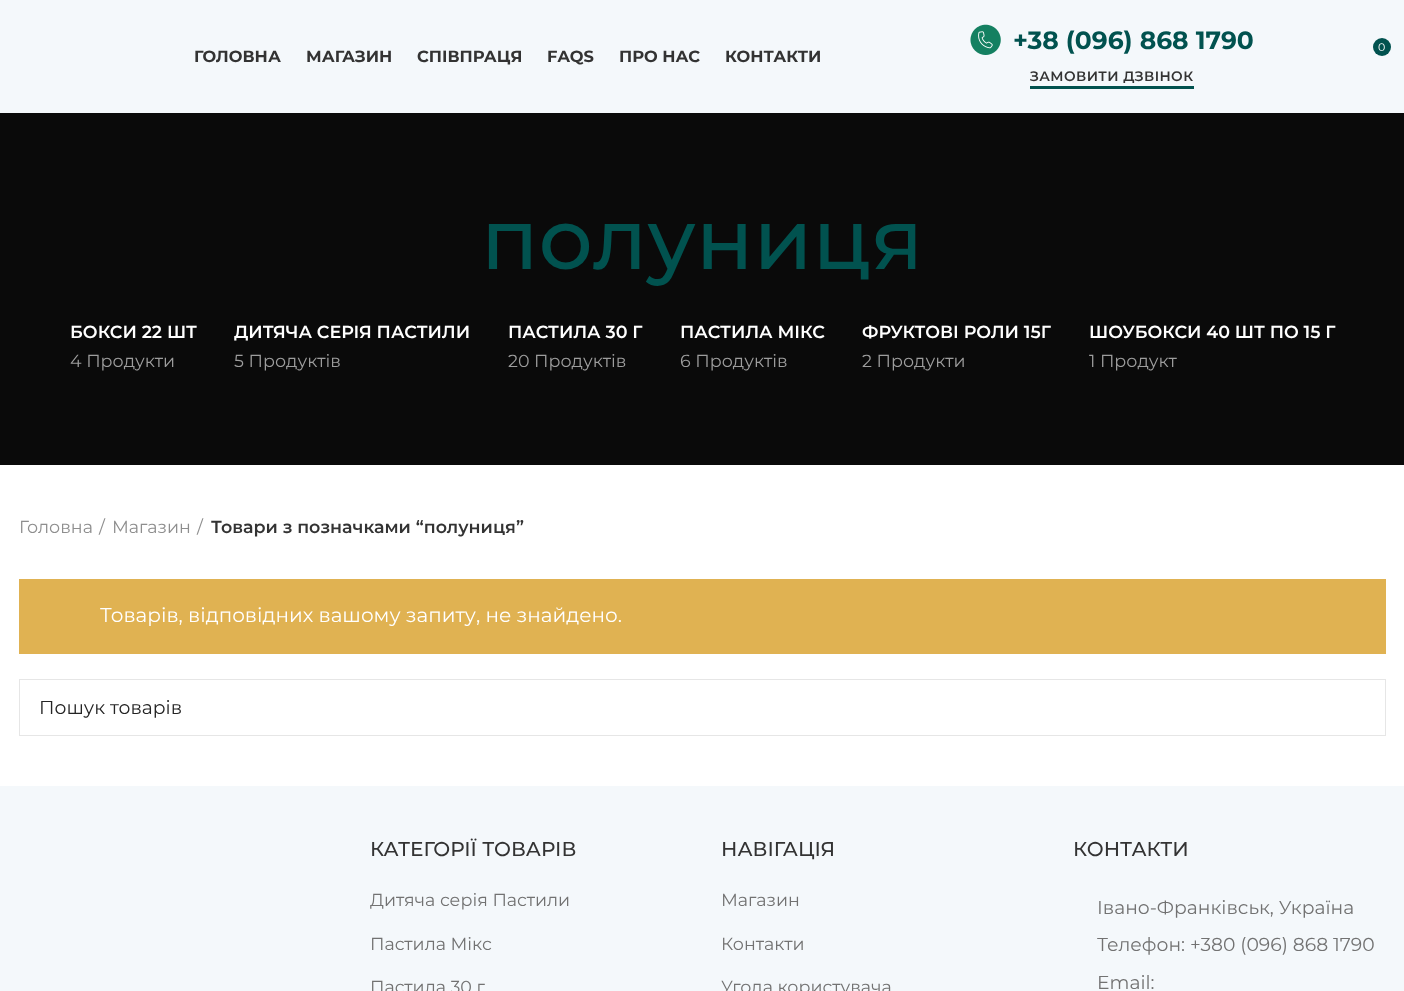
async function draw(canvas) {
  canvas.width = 1404;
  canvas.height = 991;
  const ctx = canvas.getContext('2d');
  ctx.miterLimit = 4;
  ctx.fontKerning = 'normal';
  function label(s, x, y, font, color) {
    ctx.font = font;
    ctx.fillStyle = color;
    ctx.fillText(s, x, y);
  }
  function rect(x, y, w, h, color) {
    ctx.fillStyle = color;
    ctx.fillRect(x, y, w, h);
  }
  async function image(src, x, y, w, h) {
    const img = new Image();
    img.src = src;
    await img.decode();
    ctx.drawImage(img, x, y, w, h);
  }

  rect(0, 0, 1404, 991, '#fff');
  rect(0, 0, 1404, 113, '#f4f8fb');
  label('ГОЛОВНА', 194, 62, 'bold 16.25px Montserrat', '#333');
  label('МАГАЗИН', 306, 62, 'bold 16.25px Montserrat', '#333');
  label('СПІВПРАЦЯ', 417, 62, 'bold 16.25px Montserrat', '#333');
  label('FAQS', 547, 62, 'bold 16.25px Montserrat', '#333');
  label('ПРО НАС', 619, 62, 'bold 16.25px Montserrat', '#333');
  label('КОНТАКТИ', 725, 62, 'bold 16.25px Montserrat', '#333');
  await image('assets/img1.png', 970, 24, 31, 31);
  label('+38 (096) 868 1790', 1013, 49, 'bold 25px Montserrat', '#01524f');
  rect(1030, 86, 164, 3, '#01524f');
  ctx.letterSpacing = '0.4px';
  label('ЗАМОВИТИ ДЗВIНОК', 1030, 81, '600 13.75px Montserrat', '#333');
  ctx.fillStyle = '#01524f';
  ctx.beginPath();
  ctx.arc(1382, 47, 9, 0, 2 * Math.PI);
  ctx.fill();
  ctx.letterSpacing = '0px';
  label('0', 1378, 51, '11px Montserrat', '#fff');
  rect(0, 113, 1404, 352, '#0a0a0a');
  label('полуниця', 481, 269, '500 85px Montserrat', '#01524f');
  label('БОКСИ 22 ШТ', 70, 338, '600 17.5px Montserrat', '#fff');
  label('4 Продукти', 70, 367, '17.5px Montserrat', '#9d9d9d');
  label('ДИТЯЧА СЕРІЯ ПАСТИЛИ', 234, 338, '600 17.5px Montserrat', '#fff');
  label('5 Продуктів', 234, 367, '17.5px Montserrat', '#9d9d9d');
  label('ПАСТИЛА 30 Г', 508, 338, '600 17.5px Montserrat', '#fff');
  label('20 Продуктів', 508, 367, '17.5px Montserrat', '#9d9d9d');
  label('ПАСТИЛА МІКС', 680, 338, '600 17.5px Montserrat', '#fff');
  label('6 Продуктів', 680, 367, '17.5px Montserrat', '#9d9d9d');
  label('ФРУКТОВІ РОЛИ 15Г', 862, 338, '600 17.5px Montserrat', '#fff');
  label('2 Продукти', 862, 367, '17.5px Montserrat', '#9d9d9d');
  label('ШОУБОКСИ 40 ШТ ПО 15 Г', 1089, 338, '600 17.5px Montserrat', '#fff');
  label('1 Продукт', 1089, 367, '17.5px Montserrat', '#9d9d9d');
  label('Головна', 19, 533, '17.5px Montserrat', '#8e8e8e');
  label('/', 99, 533, '17.5px Montserrat', '#8e8e8e');
  label('Магазин', 112, 533, '17.5px Montserrat', '#8e8e8e');
  label('/', 197, 533, '17.5px Montserrat', '#8e8e8e');
  label('Товари з позначками “полуниця”', 211, 533, '600 17.5px Montserrat', '#333');
  rect(19, 579, 1367, 75, '#e0b252');
  label('Товарів, відповідних вашому запиту, не знайдено.', 100, 622, '20px Montserrat', '#fff');
  ctx.strokeStyle = '#e6e6e6';
  ctx.strokeRect(19.5, 679.5, 1366, 56);
  label('Пошук товарів', 39, 714, '18.75px Montserrat', '#242424');
  rect(0, 786, 1404, 205, '#f4f8fb');
  label('КАТЕГОРІЇ ТОВАРІВ', 370, 856, '500 20px Montserrat', '#333');
  label('Дитяча серія Пастили', 370, 906, '17.5px Montserrat', '#727272');
  label('Пастила Мікс', 370, 950, '17.5px Montserrat', '#727272');
  label('Пастила 30 г', 370, 993, '17.5px Montserrat', '#727272');
  label('НАВІГАЦІЯ', 721, 856, '500 20px Montserrat', '#333');
  label('Магазин', 721, 906, '17.5px Montserrat', '#727272');
  label('Контакти', 721, 950, '17.5px Montserrat', '#727272');
  label('Угода користувача', 721, 993, '17.5px Montserrat', '#727272');
  label('КОНТАКТИ', 1073, 856, '500 20px Montserrat', '#333');
  label('Івано-Франківськ, Україна', 1097, 914, '18.75px Montserrat', '#727272');
  label('Телефон:', 1097, 951, '18.75px Montserrat', '#727272');
  label('+380 (096) 868 1790', 1190, 951, '18.75px Montserrat', '#727272');
  label('Email:', 1097, 989, '18.75px Montserrat', '#727272');
}

draw(document.querySelector('canvas'));
